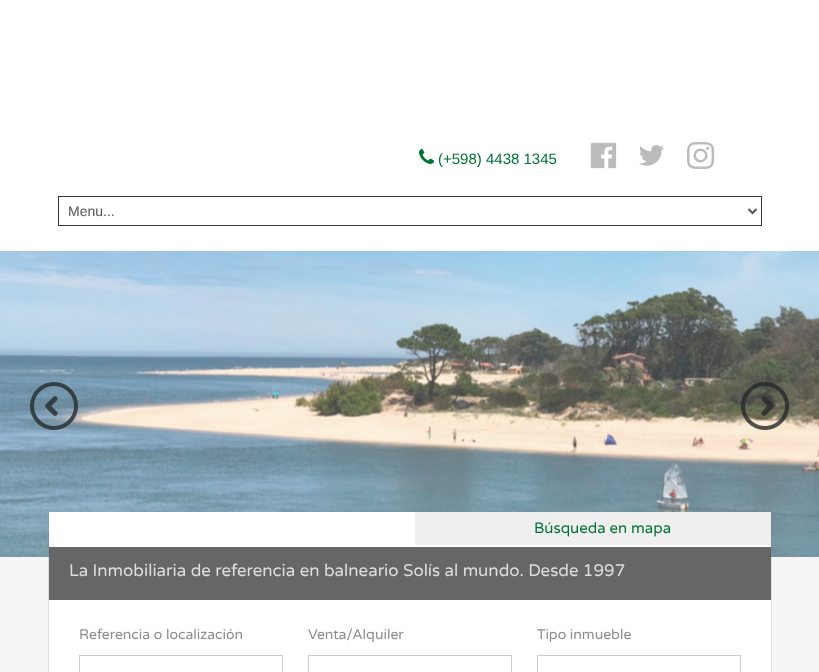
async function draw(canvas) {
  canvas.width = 819;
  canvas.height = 672;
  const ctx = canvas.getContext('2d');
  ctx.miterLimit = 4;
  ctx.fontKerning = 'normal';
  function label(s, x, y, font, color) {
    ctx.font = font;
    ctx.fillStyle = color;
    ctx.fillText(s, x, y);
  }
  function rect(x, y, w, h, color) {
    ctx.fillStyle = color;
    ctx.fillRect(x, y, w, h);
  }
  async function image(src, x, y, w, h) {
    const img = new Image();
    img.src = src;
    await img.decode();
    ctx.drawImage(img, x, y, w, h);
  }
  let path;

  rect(0, 0, 819, 672, '#f5f5f5');
  rect(0, 0, 819, 251, '#fff');
  await image('assets/img1.png', 419, 149, 15, 15);
  label('(+598) 4438 1345', 438, 164, '15px Liberation Sans', '#017334');
  await image('assets/img2.png', 590, 142, 27, 27);
  await image('assets/img3.png', 639, 145, 25, 21);
  await image('assets/img4.png', 687, 142, 28, 27);
  ctx.strokeStyle = '#343a3b';
  ctx.strokeRect(58.5, 196.5, 703, 29);
  path = new Path2D('M748.5 209L752.5 213L756.5 209');
  ctx.strokeStyle = '#555';
  ctx.lineWidth = 2;
  ctx.stroke(path);
  label('Menu...', 68, 216, '14px Liberation Sans', '#555');
  rect(771, 512, 1, 160, '#dedede');
  rect(48, 512, 1, 160, '#dedede');
  await image('assets/img5.png', 0, 251, 819, 306);
  await image('assets/img6.png', 30, 382, 48, 48);
  await image('assets/img7.png', 741, 382, 48, 48);
  rect(49, 512, 722, 160, '#fff');
  rect(415, 512, 356, 33, '#efefef');
  label('Búsqueda en mapa', 534, 533, '15px Varela Round', '#017334');
  rect(49, 547, 722, 53, '#666');
  label('La Inmobiliaria de referencia en balneario Solís al mundo. Desde 1997', 69, 576, '16.9px Varela Round', '#dedee0');
  label('Referencia o localización', 79, 639, '14px Varela Round', '#8d8d8d');
  ctx.strokeStyle = '#cdcdcd';
  ctx.lineWidth = 1;
  ctx.strokeRect(79.5, 655.5, 203, 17);
  label('Venta/Alquiler', 308, 639, '14px Varela Round', '#8d8d8d');
  ctx.strokeRect(308.5, 655.5, 203, 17);
  label('Tipo inmueble', 537, 639, '14px Varela Round', '#8d8d8d');
  ctx.strokeRect(537.5, 655.5, 203, 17);
}

draw(document.querySelector('canvas'));
